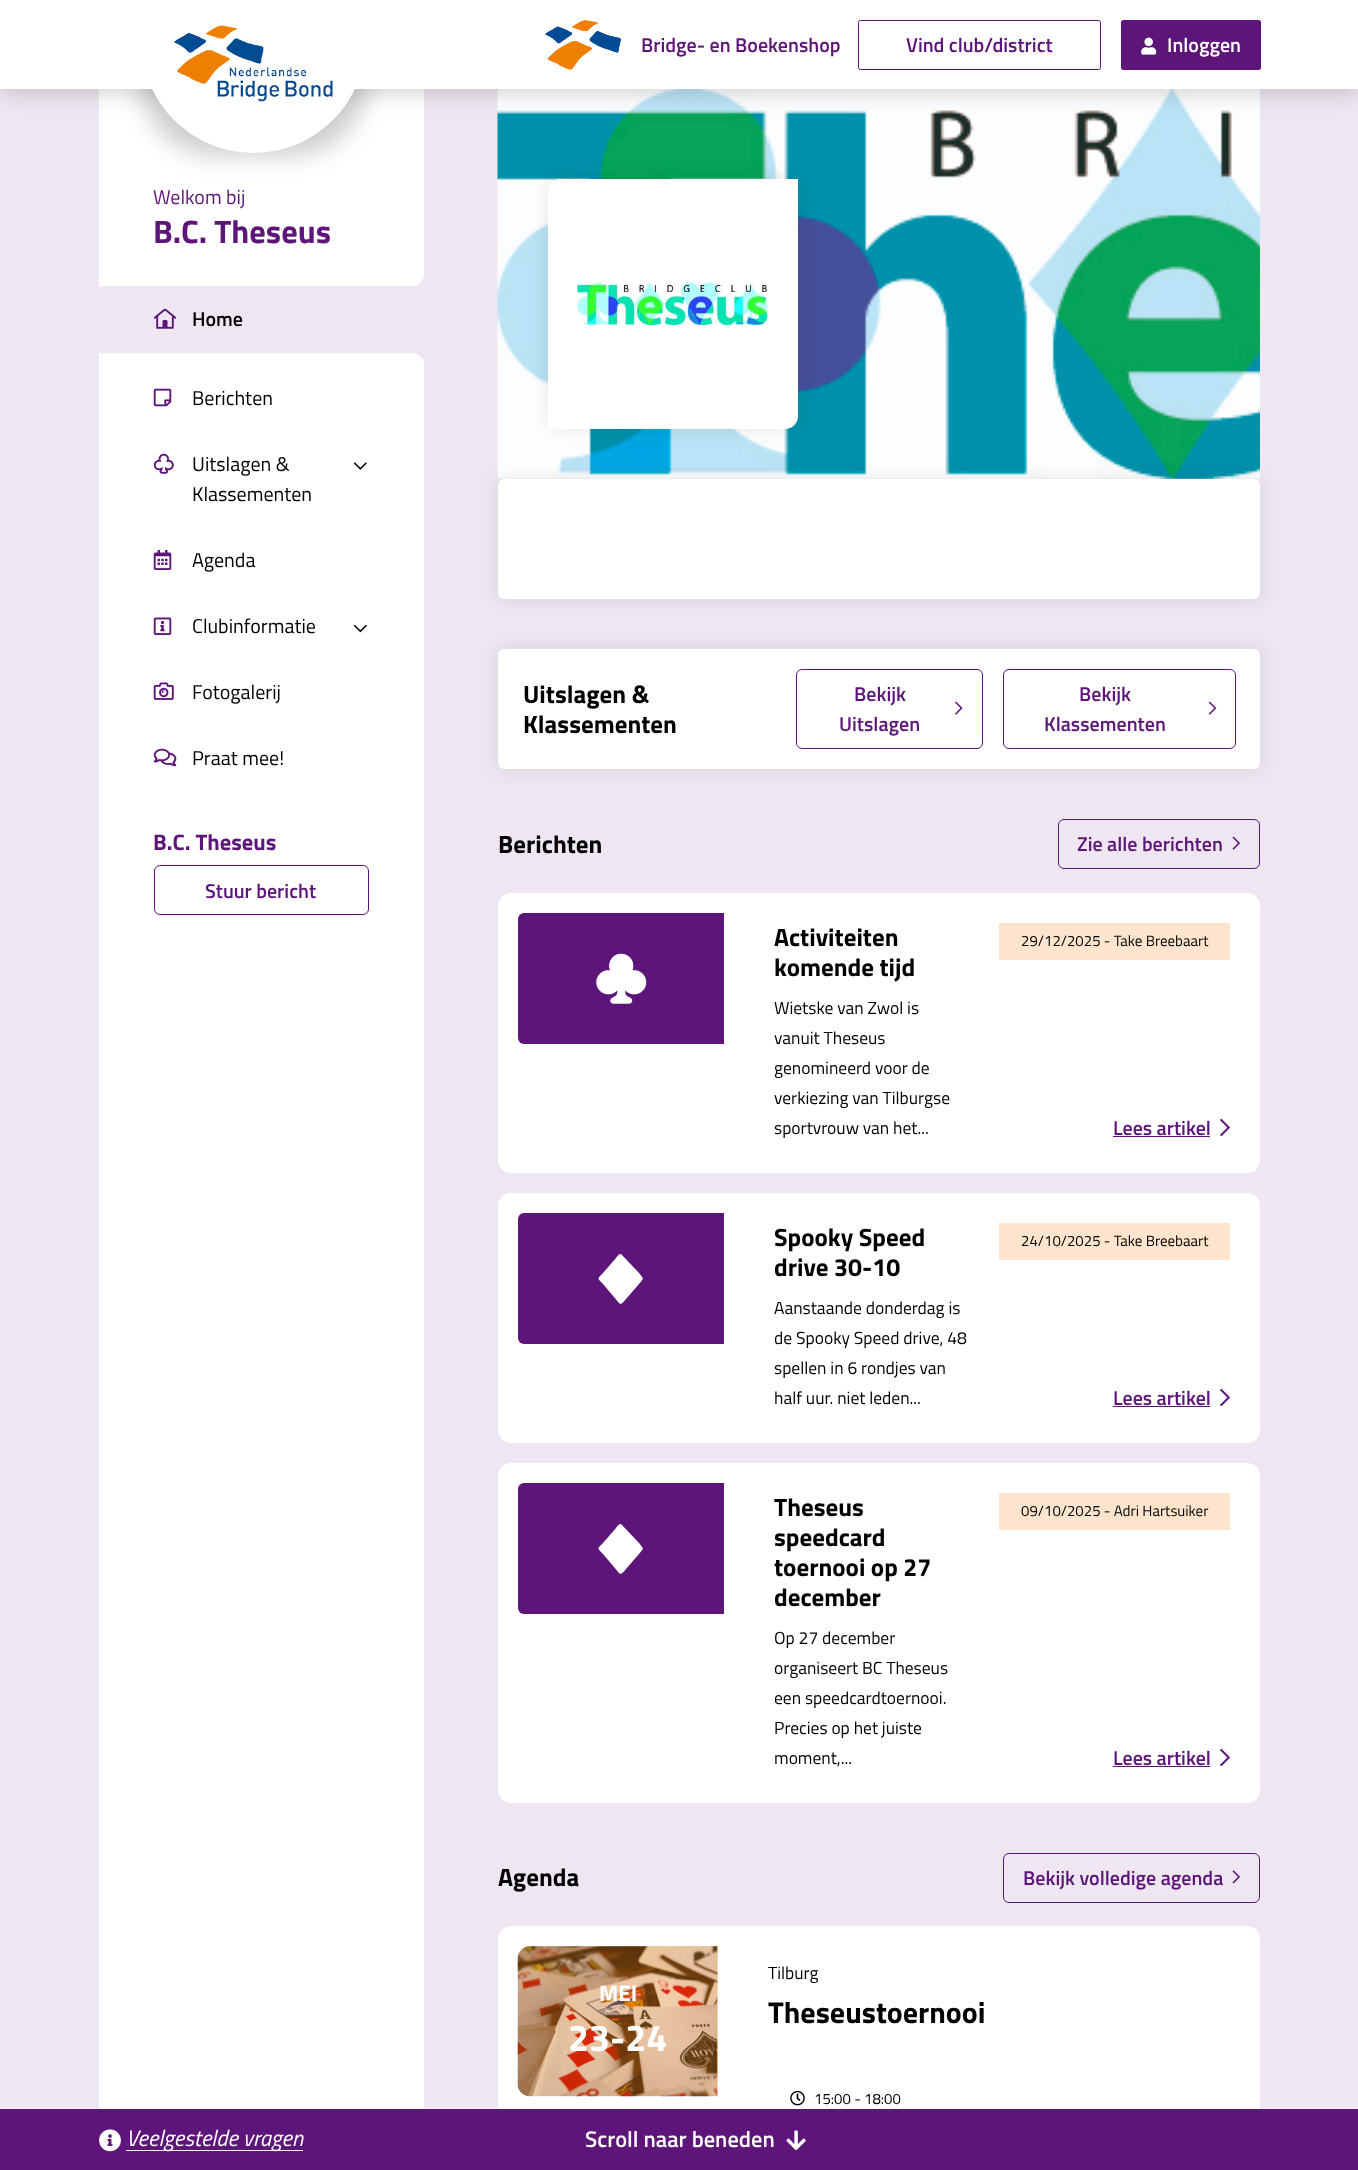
async function draw(canvas) {
  canvas.width = 1358;
  canvas.height = 2170;
  const ctx = canvas.getContext('2d');
  ctx.miterLimit = 4;
  ctx.fontKerning = 'normal';
  function label(s, x, y, font, color) {
    ctx.font = font;
    ctx.fillStyle = color;
    ctx.fillText(s, x, y);
  }
  function rect(x, y, w, h, color) {
    ctx.fillStyle = color;
    ctx.fillRect(x, y, w, h);
  }
  function roundedRect(x, y, w, h, r, color) {
    ctx.fillStyle = color;
    ctx.beginPath();
    ctx.roundRect(x, y, w, h, r);
    ctx.fill();
  }
  async function image(src, x, y, w, h) {
    const img = new Image();
    img.src = src;
    await img.decode();
    ctx.drawImage(img, x, y, w, h);
  }
  let path;

  rect(0, 0, 1358, 2170, '#eee7f1');
  rect(99, 89, 325, 185, '#fff');
  await image('assets/img13.png', 497, 89, 763, 390);
  ctx.fillStyle = '#00000033';
  ctx.filter = 'blur(12.5px)';
  ctx.beginPath();
  ctx.rect(0, 3, 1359, 88);
  ctx.fill();
  ctx.filter = 'none';
  ctx.filter = 'blur(12.5px)';
  ctx.beginPath();
  ctx.roundRect(141, 5, 225, 150, 113);
  ctx.fill();
  ctx.filter = 'none';
  ctx.fillStyle = '#fff';
  ctx.beginPath();
  ctx.roundRect(141, 3, 225, 150, [0, 0, 112.5, 112.5]);
  ctx.fill();
  rect(0, 0, 1358, 89, '#fff');
  await image('assets/img1.png', 173, 25, 160, 77);
  await image('assets/img2.png', 545, 20, 76, 50);
  label('Bridge- en Boekenshop', 641, 52, '600 20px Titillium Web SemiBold', '#5d1579');
  ctx.beginPath();
  ctx.roundRect(858.5, 20.5, 242, 49, 2);
  ctx.strokeStyle = '#5d1579';
  ctx.stroke();
  label('Vind club/district', 906, 52, '600 20px Titillium Web SemiBold', '#5d1579');
  roundedRect(1121, 20, 140, 50, 2.5, '#5d1579');
  await image('assets/img3.png', 1141, 37, 16, 18);
  label('Inloggen', 1167, 52, '600 20px Titillium Web SemiBold', '#fff');
  label('Welkom bij', 153, 204, '20px Titillium Web', '#5d1579');
  label('B.C. Theseus', 153, 243, 'bold 32.5px Titillium Web', '#5d1579');
  ctx.fillStyle = '#fff';
  ctx.beginPath();
  ctx.roundRect(99, 274, 325, 12, [0, 0, 12, 0]);
  ctx.fill();
  await image('assets/img4.png', 153, 308, 24, 21);
  label('Home', 192, 326, '600 20px Titillium Web SemiBold', '#000');
  ctx.fillStyle = '#fff';
  ctx.beginPath();
  ctx.roundRect(99, 353, 325, 12, [0, 12, 0, 0]);
  ctx.fill();
  rect(99, 365, 325, 1744, '#fff');
  await image('assets/img5.png', 153, 388, 19, 19);
  label('Berichten', 192, 405, '20px Titillium Web', '#000');
  await image('assets/img6.png', 153, 453, 21, 21);
  label('Uitslagen &', 192, 471, '20px Titillium Web', '#000');
  label('Klassementen', 192, 501, '20px Titillium Web', '#000');
  await image('assets/img7.png', 353, 462, 14, 8);
  await image('assets/img8.png', 153, 550, 19, 20);
  label('Agenda', 192, 567, '20px Titillium Web', '#000');
  await image('assets/img9.png', 153, 617, 19, 18);
  label('Clubinformatie', 192, 633, '20px Titillium Web', '#000');
  await image('assets/img10.png', 353, 624, 14, 9);
  await image('assets/img11.png', 153, 682, 21, 18);
  label('Fotogalerij', 192, 699, '20px Titillium Web', '#000');
  await image('assets/img12.png', 153, 748, 24, 19);
  label('Praat mee!', 192, 765, '20px Titillium Web', '#000');
  label('B.C. Theseus', 153, 850, 'bold 22.5px Titillium Web', '#5d1579');
  ctx.beginPath();
  ctx.roundRect(154.5, 865.5, 214, 49, 5.5);
  ctx.stroke();
  label('Stuur bericht', 205, 898, '600 20px Titillium Web SemiBold', '#5d1579');
  ctx.fillStyle = '#0000001a';
  ctx.filter = 'blur(9.5px)';
  ctx.beginPath();
  ctx.roundRect(548, 179, 250, 250, 13);
  ctx.fill();
  ctx.filter = 'none';
  ctx.fillStyle = '#fff';
  ctx.beginPath();
  ctx.roundRect(548, 179, 250, 250, [13, 0, 13, 0]);
  ctx.fill();
  await image('assets/img14.png', 577, 282, 191, 43);
  ctx.fillStyle = '#0000001a';
  ctx.filter = 'blur(9.5px)';
  ctx.beginPath();
  ctx.roundRect(498, 479, 762, 120, 6);
  ctx.fill();
  ctx.filter = 'none';
  roundedRect(498, 479, 762, 120, 6, '#fff');
  ctx.fillStyle = '#0000001a';
  ctx.filter = 'blur(9.5px)';
  ctx.beginPath();
  ctx.roundRect(498, 649, 762, 120, 6);
  ctx.fill();
  ctx.filter = 'none';
  roundedRect(498, 649, 762, 120, 6, '#fff');
  label('Uitslagen &', 523, 703, 'bold 25px Titillium Web', '#000');
  label('Klassementen', 523, 733, 'bold 25px Titillium Web', '#000');
  ctx.beginPath();
  ctx.roundRect(796.5, 669.5, 186, 79, 5.5);
  ctx.stroke();
  label('Bekijk', 854, 701, '600 20px Titillium Web SemiBold', '#5d1579');
  await image('assets/img15.png', 955, 701, 8, 14);
  label('Uitslagen', 839, 731, '600 20px Titillium Web SemiBold', '#5d1579');
  ctx.beginPath();
  ctx.roundRect(1003.5, 669.5, 232, 79, 5.5);
  ctx.stroke();
  label('Bekijk', 1079, 701, '600 20px Titillium Web SemiBold', '#5d1579');
  await image('assets/img16.png', 1208, 701, 9, 14);
  label('Klassementen', 1044, 731, '600 20px Titillium Web SemiBold', '#5d1579');
  label('Berichten', 498, 853, 'bold 25px Titillium Web', '#000');
  ctx.beginPath();
  ctx.roundRect(1058.5, 819.5, 201, 49, 5.5);
  ctx.stroke();
  label('Zie alle berichten', 1077, 851, '600 20px Titillium Web SemiBold', '#5d1579');
  await image('assets/img17.png', 1232, 836, 8, 14);
  roundedRect(498, 893, 762, 280, 13, '#fff');
  ctx.fillStyle = '#5d1579';
  ctx.beginPath();
  ctx.roundRect(518, 913, 206, 131, [6, 0, 0, 6]);
  ctx.fill();
  await image('assets/img18.png', 596, 953, 51, 51);
  label('Activiteiten', 774, 946, 'bold 25px Titillium Web', '#000');
  label('komende tijd', 774, 976, 'bold 25px Titillium Web', '#000');
  label('Wietske van Zwol is', 774, 1014, '17.5px Titillium Web', '#000');
  label('vanuit Theseus', 774, 1044, '17.5px Titillium Web', '#000');
  label('genomineerd voor de', 774, 1074, '17.5px Titillium Web', '#000');
  label('verkiezing van Tilburgse', 774, 1104, '17.5px Titillium Web', '#000');
  label('sportvrouw van het...', 774, 1134, '17.5px Titillium Web', '#000');
  rect(999, 923, 231, 37, '#fce5cc');
  label('29/12/2025 - Take Breebaart', 1021, 946, '15px Titillium Web', '#000');
  label('Lees artikel', 1113, 1135, '600 20px Titillium Web SemiBold', '#5d1579');
  rect(1113, 1136, 97, 1, '#5d1579');
  await image('assets/img19.png', 1220, 1118, 10, 19);
  roundedRect(498, 1193, 762, 250, 13, '#fff');
  ctx.fillStyle = '#5d1579';
  ctx.beginPath();
  ctx.roundRect(518, 1213, 206, 131, [6, 0, 0, 6]);
  ctx.fill();
  ctx.fillStyle = '#fff';
  path = new Path2D('M622 1255L639 1273C644 1279 644 1278 639 1284L626 1299C625 1300 621 1306 619 1303L603 1284C597 1278 597 1279 603 1273L616 1258C617 1257 620 1252 622 1255Z');
  ctx.fill(path);
  label('Spooky Speed', 774, 1246, 'bold 25px Titillium Web', '#000');
  label('drive 30-10', 774, 1276, 'bold 25px Titillium Web', '#000');
  label('Aanstaande donderdag is', 774, 1314, '17.5px Titillium Web', '#000');
  label('de Spooky Speed drive, 48', 774, 1344, '17.5px Titillium Web', '#000');
  label('spellen in 6 rondjes van', 774, 1374, '17.5px Titillium Web', '#000');
  label('half uur. niet leden...', 774, 1404, '17.5px Titillium Web', '#000');
  rect(999, 1223, 231, 37, '#fce5cc');
  label('24/10/2025 - Take Breebaart', 1021, 1246, '15px Titillium Web', '#000');
  label('Lees artikel', 1113, 1405, '600 20px Titillium Web SemiBold', '#5d1579');
  rect(1113, 1406, 97, 1, '#5d1579');
  await image('assets/img19.png', 1220, 1388, 10, 19);
  roundedRect(498, 1463, 762, 340, 13, '#fff');
  ctx.fillStyle = '#5d1579';
  ctx.beginPath();
  ctx.roundRect(518, 1483, 206, 131, [6, 0, 0, 6]);
  ctx.fill();
  ctx.fillStyle = '#fff';
  path = new Path2D('M622 1525L639 1543C644 1549 644 1548 639 1554L626 1569C625 1570 621 1576 619 1573L603 1554C597 1548 597 1549 603 1543L616 1528C617 1527 620 1522 622 1525Z');
  ctx.fill(path);
  label('Theseus', 774, 1516, 'bold 25px Titillium Web', '#000');
  label('speedcard', 774, 1546, 'bold 25px Titillium Web', '#000');
  label('toernooi op 27', 774, 1576, 'bold 25px Titillium Web', '#000');
  label('december', 774, 1606, 'bold 25px Titillium Web', '#000');
  label('Op 27 december', 774, 1644, '17.5px Titillium Web', '#000');
  label('organiseert BC Theseus', 774, 1674, '17.5px Titillium Web', '#000');
  label('een speedcardtoernooi.', 774, 1704, '17.5px Titillium Web', '#000');
  label('Precies op het juiste', 774, 1734, '17.5px Titillium Web', '#000');
  label('moment,...', 774, 1764, '17.5px Titillium Web', '#000');
  rect(999, 1493, 231, 37, '#fce5cc');
  label('09/10/2025 - Adri Hartsuiker', 1021, 1516, '15px Titillium Web', '#000');
  label('Lees artikel', 1113, 1765, '600 20px Titillium Web SemiBold', '#5d1579');
  rect(1113, 1766, 97, 1, '#5d1579');
  await image('assets/img19.png', 1220, 1748, 10, 19);
  label('Agenda', 498, 1886, 'bold 25px Titillium Web', '#000');
  ctx.beginPath();
  ctx.roundRect(1003.5, 1853.5, 256, 49, 5.5);
  ctx.stroke();
  label('Bekijk volledige agenda', 1023, 1885, '600 20px Titillium Web SemiBold', '#5d1579');
  await image('assets/img20.png', 1232, 1870, 8, 14);
  roundedRect(498, 1926, 762, 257, 13, '#fff');
  await image('assets/img21.png', 517, 1946, 201, 151);
  ctx.fillStyle = '#ee7f014d';
  ctx.beginPath();
  ctx.roundRect(518, 1946, 200, 150, [13, 0, 0, 13]);
  ctx.fill();
  label('MEI', 599, 2001, 'bold 22.5px Titillium Web', '#fff');
  label('23-24', 568, 2051, 'bold 37.5px Titillium Web', '#fff');
  label('Tilburg', 768, 1979, '17.5px Titillium Web', '#000');
  label('Theseustoernooi', 768, 2023, 'bold 30px Titillium Web', '#000');
  await image('assets/img22.png', 790, 2090, 15, 16);
  label('15:00 - 18:00', 814, 2104, '15px Titillium Web', '#000');
  rect(0, 2109, 1358, 61, '#5d1579');
  await image('assets/img23.png', 99, 2129, 22, 23);
  rect(126, 2150, 177, 1, '#fff');
  label('Veelgestelde vragen', 126, 2146, 'italic 22.5px Titillium Web', '#fff');
  label('Scroll naar beneden', 585, 2147, '600 22.5px Titillium Web SemiBold', '#fff');
  await image('assets/img24.png', 786, 2130, 20, 21);
}

draw(document.querySelector('canvas'));
